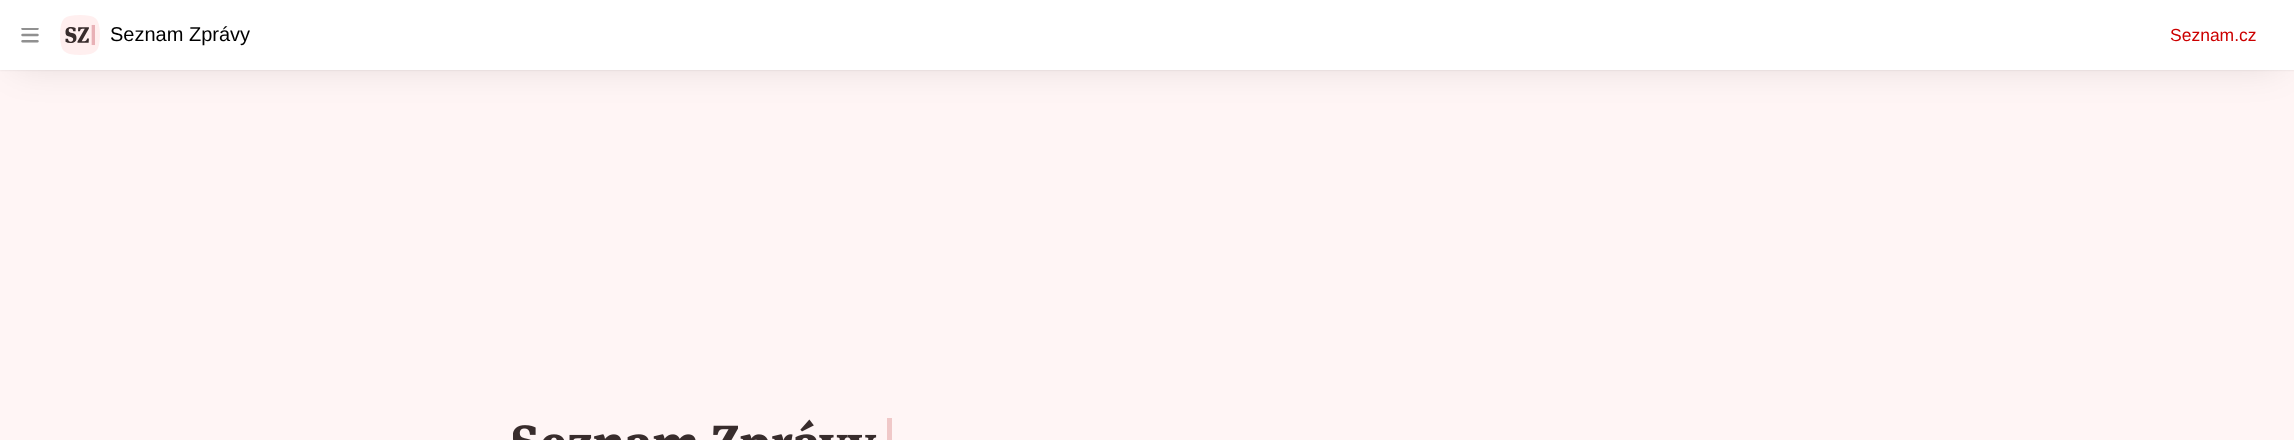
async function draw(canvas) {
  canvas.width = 2294;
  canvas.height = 440;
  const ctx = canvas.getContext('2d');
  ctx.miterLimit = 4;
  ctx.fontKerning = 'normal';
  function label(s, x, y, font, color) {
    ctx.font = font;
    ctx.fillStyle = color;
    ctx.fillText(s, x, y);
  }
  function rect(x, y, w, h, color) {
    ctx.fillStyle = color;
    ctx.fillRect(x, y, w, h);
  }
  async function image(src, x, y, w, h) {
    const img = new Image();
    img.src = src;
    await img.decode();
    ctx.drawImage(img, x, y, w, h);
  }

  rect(0, 0, 2294, 440, '#fff5f5');
  ctx.fillStyle = '#0000001f';
  ctx.filter = 'blur(19px)';
  ctx.beginPath();
  ctx.rect(15, 25, 2265, 40);
  ctx.fill();
  ctx.filter = 'none';
  ctx.fillStyle = '#0000001a';
  ctx.filter = 'blur(1px)';
  ctx.beginPath();
  ctx.rect(0, 0, 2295, 70);
  ctx.fill();
  ctx.filter = 'none';
  rect(0, 0, 2294, 70, '#fff');
  await image('assets/img1.png', 21, 28, 18, 15);
  await image('assets/img2.png', 60, 15, 40, 40);
  label('Seznam Zprávy', 110, 41, '20px Liberation Sans', '#000');
  label('Seznam.cz', 2170, 41, '17.5px Liberation Sans', '#c00');
  await image('assets/img3.png', 513, 418, 379, 22);
}

draw(document.querySelector('canvas'));
